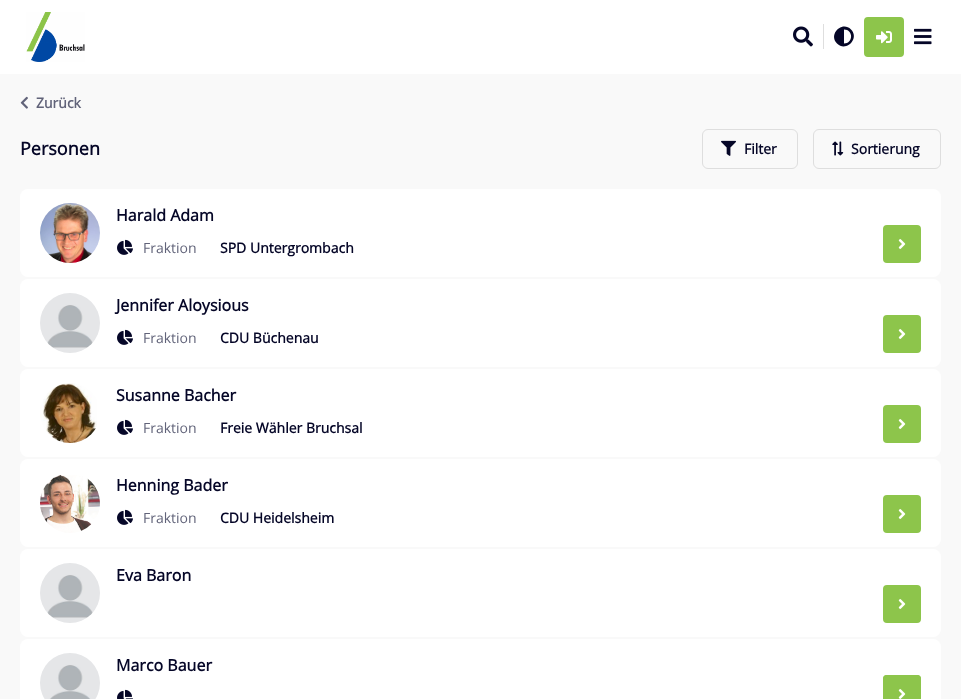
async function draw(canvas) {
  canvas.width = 961;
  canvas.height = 700;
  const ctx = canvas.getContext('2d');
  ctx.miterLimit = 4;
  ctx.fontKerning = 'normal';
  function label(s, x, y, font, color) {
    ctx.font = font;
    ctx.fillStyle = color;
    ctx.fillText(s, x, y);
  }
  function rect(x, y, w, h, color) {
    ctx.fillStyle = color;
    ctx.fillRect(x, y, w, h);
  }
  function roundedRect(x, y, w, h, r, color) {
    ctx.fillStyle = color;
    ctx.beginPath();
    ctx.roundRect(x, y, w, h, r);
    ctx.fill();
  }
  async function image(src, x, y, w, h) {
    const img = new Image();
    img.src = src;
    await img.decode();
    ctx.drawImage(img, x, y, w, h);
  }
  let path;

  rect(0, 0, 961, 700, '#fff');
  await image('assets/img1.png', 26, 12, 59, 50);
  rect(823, 24, 1, 25, '#dedede');
  await image('assets/img2.png', 793, 26, 20, 21);
  ctx.fillStyle = '#050627';
  path = new Path2D('M837 43.5C828 34.5 842 20.5 851 29.5C860 38.5 846 52.5 837 43.5ZM844 43.5C853.5 43.5 853.5 29.5 844 29.5Z');
  ctx.fill(path);
  ctx.fillStyle = '#8dc54b';
  ctx.beginPath();
  ctx.roundRect(865, 18, 38, 38, 3);
  ctx.fill();
  ctx.strokeStyle = '#8dc54b';
  ctx.lineWidth = 2;
  ctx.stroke();
  await image('assets/img3.png', 876, 31, 16, 13);
  await image('assets/img4.png', 914, 28, 18, 17);
  rect(0, 74, 961, 625, '#f9f9f9');
  await image('assets/img5.png', 20, 96, 8, 13);
  label('Zurück', 36, 108, 'bold 14px Open Sans', '#616379');
  label('Personen', 20, 155, 'bold 18px Open Sans', '#050627');
  ctx.beginPath();
  ctx.roundRect(702.5, 129.5, 95, 39, 5.5);
  ctx.strokeStyle = '#dedede';
  ctx.lineWidth = 1;
  ctx.stroke();
  await image('assets/img6.png', 721, 140, 15, 16);
  label('Filter', 744, 154, 'bold 14px Open Sans', '#050627');
  ctx.beginPath();
  ctx.roundRect(813.5, 129.5, 127, 39, 5.5);
  ctx.stroke();
  await image('assets/img7.png', 832, 141, 12, 15);
  label('Sortierung', 851, 154, 'bold 14px Open Sans', '#050627');
  roundedRect(20, 189, 921, 88, 8, '#fff');
  await image('assets/img8.png', 40, 203, 60, 60);
  label('Harald Adam', 116, 221, 'bold 16px Open Sans', '#050627');
  await image('assets/img9.png', 117, 239, 16, 16);
  label('Fraktion', 143, 253, '14px Open Sans', '#616379');
  label('SPD Untergrombach', 220, 253, 'bold 14px Open Sans', '#050627');
  ctx.fillStyle = '#8dc54b';
  ctx.beginPath();
  ctx.roundRect(884, 226, 36, 36, 3);
  ctx.fill();
  ctx.strokeStyle = '#8dc54b';
  ctx.lineWidth = 2;
  ctx.stroke();
  await image('assets/img10.png', 898, 239, 8, 10);
  roundedRect(20, 279, 921, 88, 8, '#fff');
  await image('assets/img11.png', 40, 293, 60, 60);
  label('Jennifer Aloysious', 116, 311, 'bold 16px Open Sans', '#050627');
  await image('assets/img9.png', 117, 329, 16, 16);
  label('Fraktion', 143, 343, '14px Open Sans', '#616379');
  label('CDU Büchenau', 220, 343, 'bold 14px Open Sans', '#050627');
  ctx.fillStyle = '#8dc54b';
  ctx.beginPath();
  ctx.roundRect(884, 316, 36, 36, 3);
  ctx.fill();
  ctx.stroke();
  await image('assets/img10.png', 898, 329, 8, 10);
  roundedRect(20, 369, 921, 88, 8, '#fff');
  await image('assets/img12.png', 40, 383, 57, 60);
  label('Susanne Bacher', 116, 401, 'bold 16px Open Sans', '#050627');
  await image('assets/img9.png', 117, 419, 16, 16);
  label('Fraktion', 143, 433, '14px Open Sans', '#616379');
  label('Freie Wähler Bruchsal', 220, 433, 'bold 14px Open Sans', '#050627');
  ctx.fillStyle = '#8dc54b';
  ctx.beginPath();
  ctx.roundRect(884, 406, 36, 36, 3);
  ctx.fill();
  ctx.stroke();
  await image('assets/img10.png', 898, 419, 8, 10);
  roundedRect(20, 459, 921, 88, 8, '#fff');
  await image('assets/img13.png', 40, 475, 60, 58);
  label('Henning Bader', 116, 491, 'bold 16px Open Sans', '#050627');
  await image('assets/img9.png', 117, 509, 16, 16);
  label('Fraktion', 143, 523, '14px Open Sans', '#616379');
  label('CDU Heidelsheim', 220, 523, 'bold 14px Open Sans', '#050627');
  ctx.fillStyle = '#8dc54b';
  ctx.beginPath();
  ctx.roundRect(884, 496, 36, 36, 3);
  ctx.fill();
  ctx.stroke();
  await image('assets/img10.png', 898, 509, 8, 10);
  roundedRect(20, 549, 921, 88, 8, '#fff');
  await image('assets/img11.png', 40, 563, 60, 60);
  label('Eva Baron', 116, 581, 'bold 16px Open Sans', '#050627');
  ctx.fillStyle = '#8dc54b';
  ctx.beginPath();
  ctx.roundRect(884, 586, 36, 36, 3);
  ctx.fill();
  ctx.stroke();
  await image('assets/img10.png', 898, 599, 8, 10);
  ctx.fillStyle = '#fff';
  ctx.beginPath();
  ctx.roundRect(20, 639, 921, 60, [8, 8, 0, 0]);
  ctx.fill();
  await image('assets/img14.png', 40, 653, 60, 46);
  label('Marco Bauer', 116, 671, 'bold 16px Open Sans', '#050627');
  await image('assets/img15.png', 117, 689, 16, 10);
  ctx.fillStyle = '#8dc54b';
  ctx.beginPath();
  ctx.roundRect(883, 675, 38, 24, [4, 4, 0, 0]);
  ctx.fill();
  ctx.save();
  ctx.beginPath();
  ctx.rect(0, 74, 961, 625);
  ctx.clip();
  ctx.beginPath();
  ctx.roundRect(884, 676, 36, 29, 3);
  ctx.stroke();
  ctx.restore();
  await image('assets/img10.png', 898, 689, 8, 10);
}

draw(document.querySelector('canvas'));
